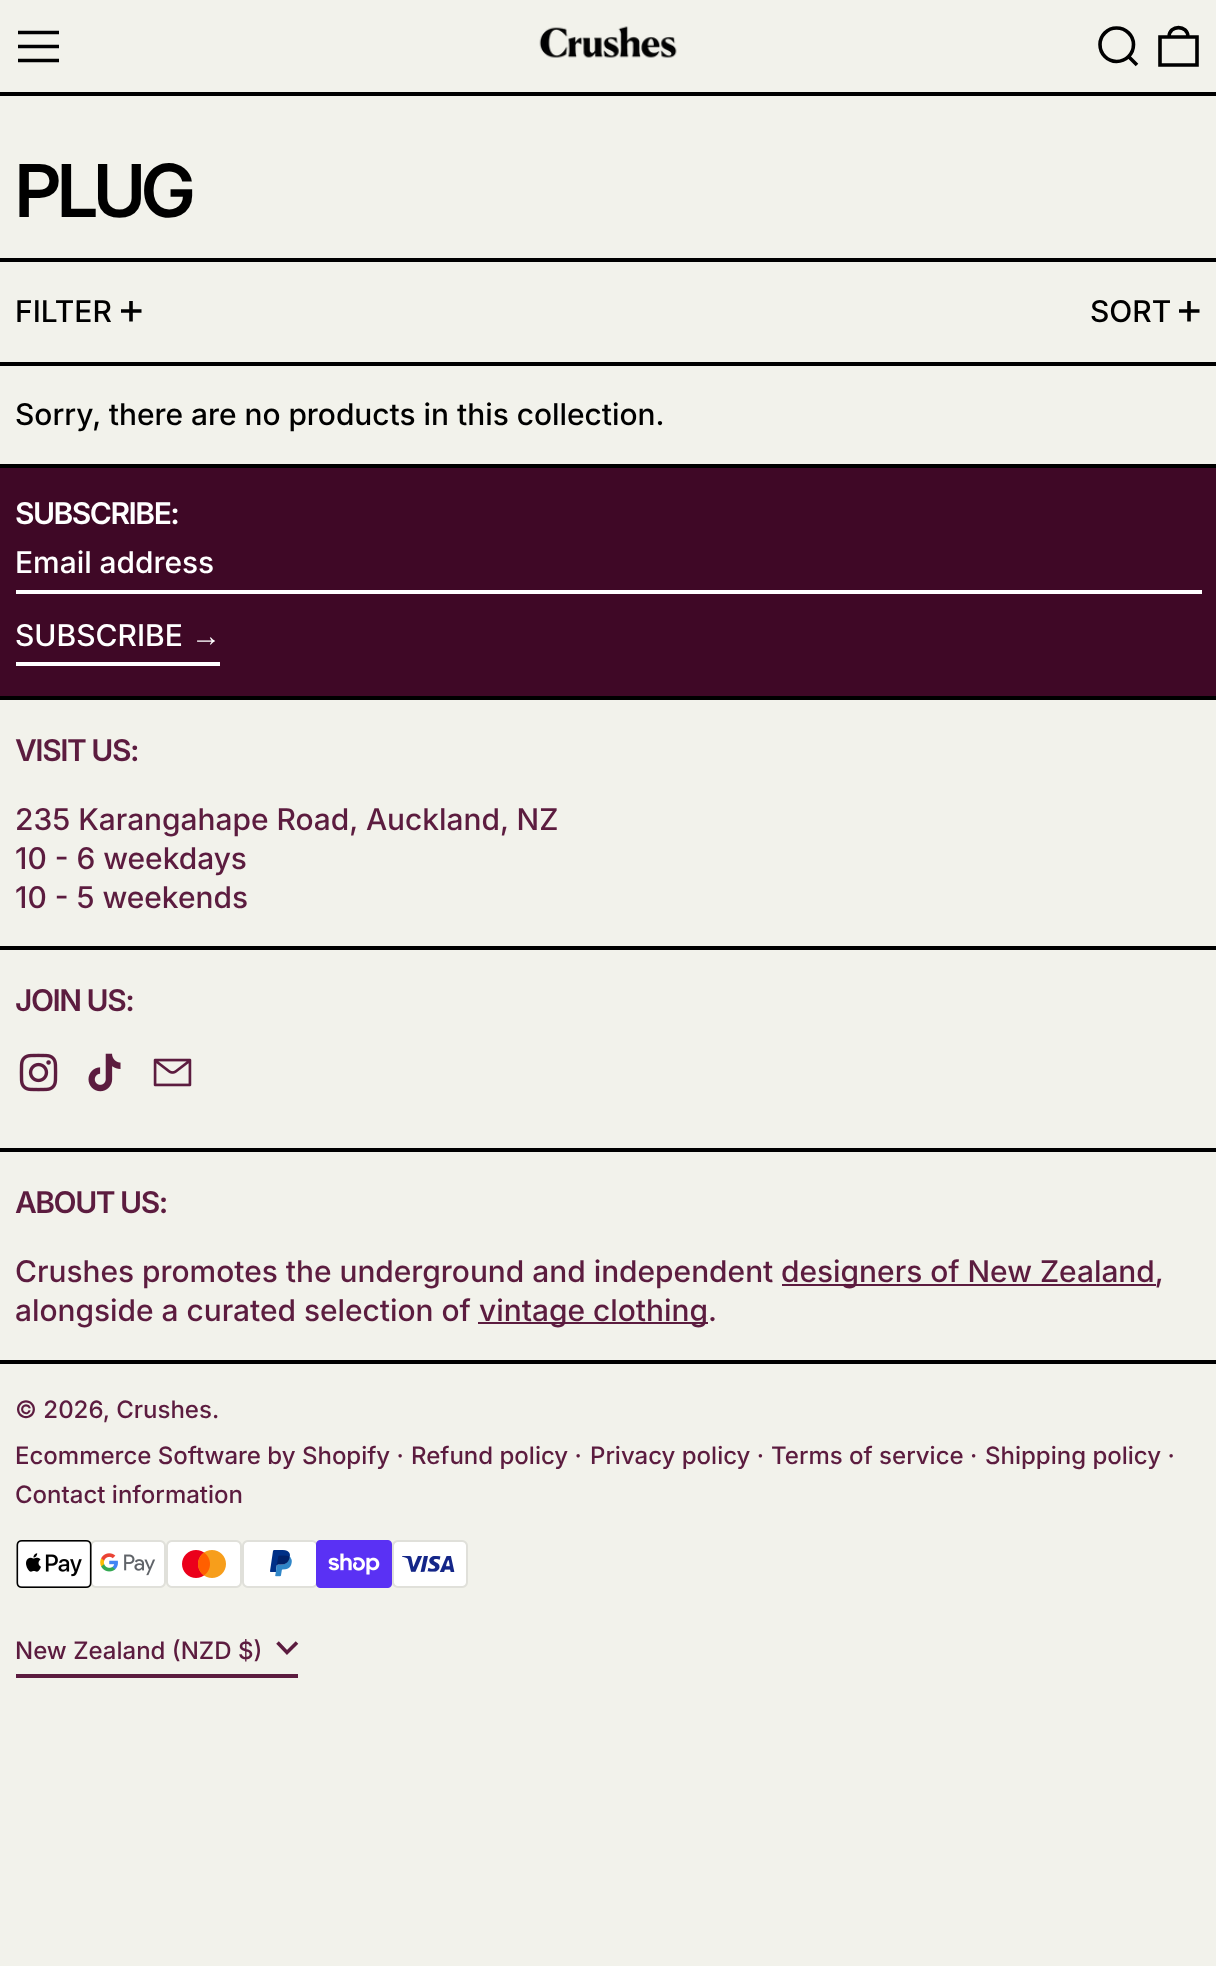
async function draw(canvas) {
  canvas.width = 1216;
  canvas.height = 1966;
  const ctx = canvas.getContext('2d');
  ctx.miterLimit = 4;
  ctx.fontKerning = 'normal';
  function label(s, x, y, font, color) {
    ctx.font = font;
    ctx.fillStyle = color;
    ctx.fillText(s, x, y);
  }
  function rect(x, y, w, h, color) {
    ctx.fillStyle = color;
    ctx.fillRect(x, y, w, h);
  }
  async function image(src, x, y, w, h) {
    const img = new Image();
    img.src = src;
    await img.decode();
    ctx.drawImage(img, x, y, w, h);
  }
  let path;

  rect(0, 0, 1216, 1966, '#f2f2eb');
  rect(0, 92, 1216, 4, '#000');
  path = new Path2D('M18 32.5H59M18 46.5H59M18 60.5H59');
  ctx.strokeStyle = '#000';
  ctx.lineWidth = 3.6;
  ctx.stroke(path);
  await image('assets/img1.png', 539, 26, 138, 32);
  path = new Path2D('M1100 44.5C1100 54 1107.5 61.5 1116.5 61.5C1126 61.5 1133.5 54 1133.5 44.5C1133.5 35.5 1126 28 1116.5 28C1107.5 28 1100 35.5 1100 44.5ZM1128.5 56.5L1137 65');
  ctx.stroke(path);
  path = new Path2D('M1160 37H1197V65H1160ZM1188 37C1188 24.5 1169 24.5 1169 37');
  ctx.stroke(path);
  rect(0, 464, 1216, 4, '#000');
  rect(0, 258, 1216, 4, '#000');
  ctx.letterSpacing = '-3.5px';
  label('PLUG', 15, 217, '600 73px "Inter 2"', '#000');
  rect(0, 362, 1216, 4, '#000');
  ctx.letterSpacing = '0px';
  label('FILTER', 15, 322, '500 30px Inter', '#000');
  path = new Path2D('M131 301V321.5M121 311H141.5');
  ctx.stroke(path);
  label('SORT', 1090, 322, '500 30px Inter', '#000');
  path = new Path2D('M1189 301V321.5M1179 311H1199.5');
  ctx.stroke(path);
  label('Sorry, there are no products in this collection.', 15, 425, '500 30px Inter', '#000');
  rect(0, 468, 1216, 228, '#3f0826');
  rect(0, 696, 1216, 4, '#000');
  ctx.letterSpacing = '-1.5px';
  label('SUBSCRIBE:', 15, 524, '600 30px Inter', '#fff');
  rect(16, 590, 1186, 4, '#fff');
  ctx.letterSpacing = '0px';
  label('Email address', 15, 573, '500 30px Inter', '#fff');
  rect(16, 662, 204, 4, '#fff');
  label('SUBSCRIBE', 15, 646, '500 30px Inter', '#fff');
  label('→', 191, 646, '30px Liberation Sans', '#fff');
  rect(0, 1360, 1216, 4, '#000');
  rect(0, 946, 1216, 206, '#000');
  ctx.letterSpacing = '-1.5px';
  label('VISIT US:', 15, 761, '600 30px Inter', '#5c1c3f');
  ctx.letterSpacing = '0px';
  label('235 Karangahape Road, Auckland, NZ', 15, 830, '500 30px Inter', '#5c1c3f');
  label('10 - 6 weekdays', 15, 869, '500 30px Inter', '#5c1c3f');
  label('10 - 5 weekends', 15, 908, '500 30px Inter', '#5c1c3f');
  rect(0, 950, 1216, 198, '#f2f2eb');
  ctx.letterSpacing = '-1.5px';
  label('JOIN US:', 15, 1011, '600 30px Inter', '#5c1c3f');
  await image('assets/img2.png', 19, 1053, 39, 39);
  await image('assets/img3.png', 88, 1053, 33, 39);
  await image('assets/img4.png', 153, 1058, 39, 29);
  label('ABOUT US:', 15, 1213, '600 30px Inter', '#5c1c3f');
  ctx.letterSpacing = '0px';
  label('Crushes promotes the underground and independent', 15, 1282, '500 30px Inter', '#5c1c3f');
  rect(782, 1284, 374, 2, '#5c1c3f');
  label('designers of New Zealand,', 781, 1282, '500 30px Inter', '#5c1c3f');
  label('alongside a curated selection of', 15, 1321, '500 30px Inter', '#5c1c3f');
  rect(478, 1322, 230, 2, '#5c1c3f');
  label('vintage clothing.', 479, 1321, '500 30px Inter', '#5c1c3f');
  label('© 2026, Crushes.', 15, 1418, '500 24px "Inter 2"', '#5c1c3f');
  label('Ecommerce Software by Shopify ·', 15, 1464, '500 24px "Inter 2"', '#5c1c3f');
  label('Refund policy ·', 411, 1464, '500 24px "Inter 2"', '#5c1c3f');
  label('Privacy policy ·', 590, 1464, '500 24px "Inter 2"', '#5c1c3f');
  label('Terms of service ·', 771, 1464, '500 24px "Inter 2"', '#5c1c3f');
  label('Shipping policy ·', 985, 1464, '500 24px "Inter 2"', '#5c1c3f');
  label('Contact information', 15, 1503, '500 24px "Inter 2"', '#5c1c3f');
  await image('assets/img5.png', 16, 1540, 76, 48);
  await image('assets/img6.png', 91, 1540, 75, 48);
  await image('assets/img7.png', 166, 1540, 76, 48);
  await image('assets/img8.png', 242, 1540, 75, 48);
  await image('assets/img9.png', 316, 1540, 76, 48);
  await image('assets/img10.png', 392, 1540, 76, 48);
  rect(16, 1674, 282, 4, '#5c1c3f');
  label('New Zealand (NZD $)', 15, 1659, '500 24px "Inter 2"', '#5c1c3f');
  path = new Path2D('M277.5 1642.5L287 1652.5L297 1642.5');
  ctx.strokeStyle = '#5c1c3f';
  ctx.stroke(path);
}

draw(document.querySelector('canvas'));
